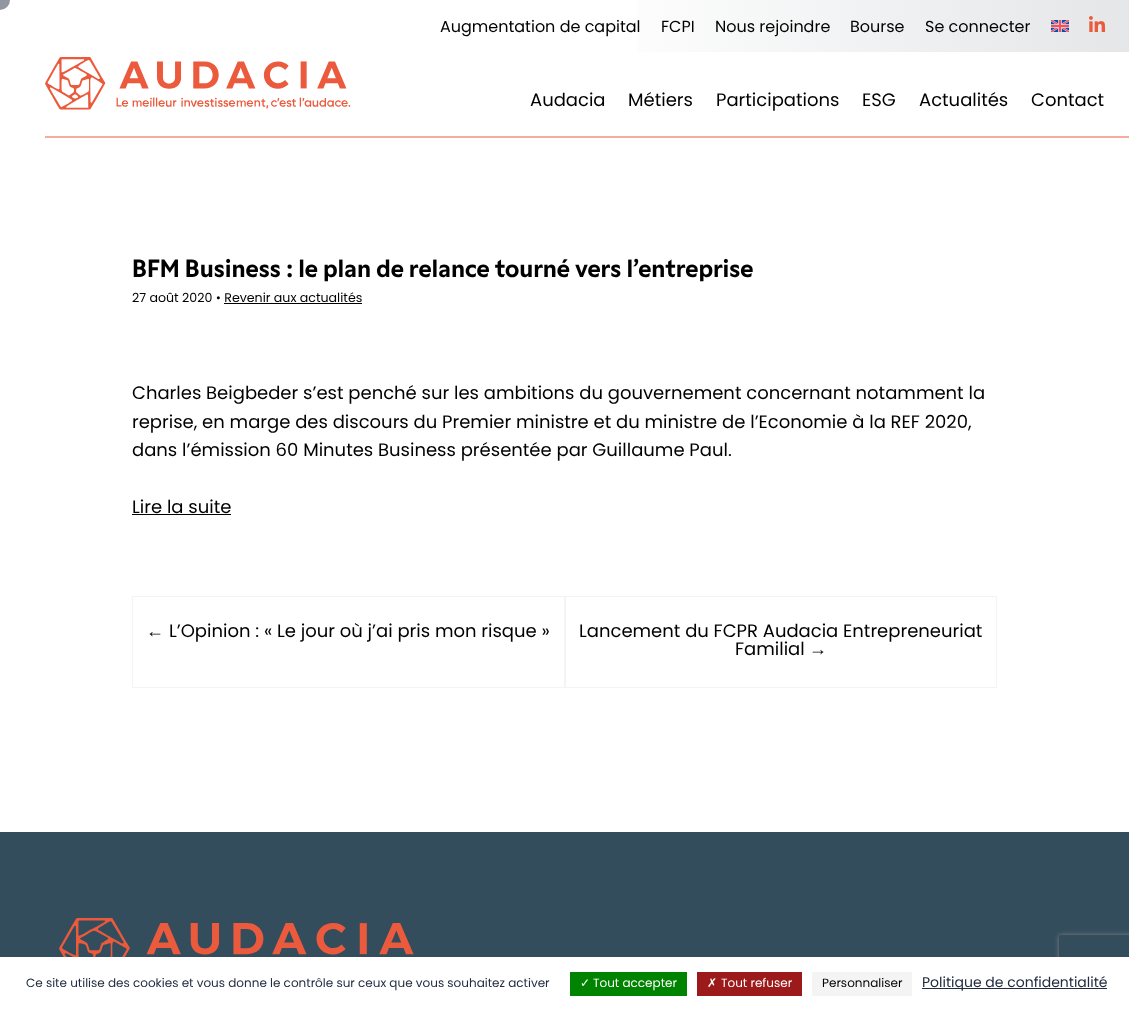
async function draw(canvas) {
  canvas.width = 1129;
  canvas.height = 1009;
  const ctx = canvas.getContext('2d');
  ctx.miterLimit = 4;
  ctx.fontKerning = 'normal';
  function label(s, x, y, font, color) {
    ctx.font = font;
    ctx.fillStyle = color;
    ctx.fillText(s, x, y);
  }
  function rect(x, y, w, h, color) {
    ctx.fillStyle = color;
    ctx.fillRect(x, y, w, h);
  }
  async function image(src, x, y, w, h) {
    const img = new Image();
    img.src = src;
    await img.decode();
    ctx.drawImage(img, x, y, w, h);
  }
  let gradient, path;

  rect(0, 0, 1129, 1009, '#fff');
  ctx.fillStyle = '#9196a0';
  ctx.beginPath();
  ctx.arc(0, 0, 10, 0, 2 * Math.PI);
  ctx.fill();
  gradient = ctx.createLinearGradient(45, 26, 1129, 26);
  gradient.addColorStop(0.5, '#fff');
  gradient.addColorStop(1, '#e4e6e8');
  ctx.fillStyle = gradient;
  ctx.fillRect(637, 0, 492, 52);
  label('Augmentation de capital', 440, 32, '16px Poppins', '#000');
  label('FCPI', 661, 32, '16px Poppins', '#000');
  label('Nous rejoindre', 715, 32, '16px Poppins', '#000');
  label('Bourse', 850, 32, '16px Poppins', '#000');
  label('Se connecter', 925, 32, '16px Poppins', '#000');
  await image('assets/img1.png', 1051, 20, 18, 12);
  await image('assets/img2.png', 1089, 16, 16, 16);
  rect(45, 136, 1084, 2, '#f5ad9e');
  await image('assets/img3.png', 45, 57, 306, 53);
  label('Audacia', 530, 106, '18px Poppins', '#000');
  label('Métiers', 628, 106, '18px Poppins', '#000');
  label('Participations', 716, 106, '18px Poppins', '#000');
  label('ESG', 862, 106, '18px Poppins', '#000');
  label('Actualités', 919, 106, '18px Poppins', '#000');
  label('Contact', 1031, 106, '18px Poppins', '#000');
  ctx.wordSpacing = '0.25px';
  label('BFM Business : le plan de relance tourné vers l’entreprise', 132, 277, '500 24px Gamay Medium', '#000');
  ctx.wordSpacing = '0px';
  label('27 août 2020 • Revenir aux actualités', 132, 302, '12.6px Poppins', '#000');
  rect(224, 303, 138, 1, '#000');
  label('Charles Beigbeder s’est penché sur les ambitions du gouvernement concernant notamment la', 132, 399, '18px Poppins', '#000');
  label('reprise, en marge des discours du Premier ministre et du ministre de l’Economie à la REF 2020,', 132, 428, '18px Poppins', '#000');
  label('dans l’émission 60 Minutes Business présentée par Guillaume Paul.', 132, 456, '18px Poppins', '#000');
  label('Lire la suite', 132, 513, '18px Poppins', '#000');
  rect(132, 514, 99, 1, '#000');
  ctx.strokeStyle = '#f4f4f4';
  ctx.strokeRect(132.5, 596.5, 432, 91);
  label('←', 146, 637, '18px Liberation Sans', '#000');
  label('L’Opinion : « Le jour où j’ai pris mon risque »', 169, 637, '18px Poppins', '#000');
  ctx.strokeRect(565.5, 596.5, 431, 91);
  label('Lancement du FCPR Audacia Entrepreneuriat', 579, 637, '18px Poppins', '#000');
  label('Familial', 735, 655, '18px Poppins', '#000');
  label('→', 809, 655, '18px Liberation Sans', '#000');
  rect(0, 832, 1129, 125, '#344d5d');
  await image('assets/img4.png', 59, 918, 355, 39);
  ctx.save();
  path = new Path2D('M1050 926H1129V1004H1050ZM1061 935H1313C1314 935 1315 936 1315 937V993C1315 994 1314 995 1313 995H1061C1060 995 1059 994 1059 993V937C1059 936 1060 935 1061 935Z');
  ctx.clip(path, 'evenodd');
  ctx.fillStyle = '#808080';
  ctx.filter = 'blur(2.5px)';
  ctx.beginPath();
  ctx.roundRect(1059, 935, 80, 60, 2);
  ctx.fill();
  ctx.filter = 'none';
  ctx.restore();
  rect(1054, 957, 75, 43, '#fff');
  label('Ce site utilise des cookies et vous donne le contrôle sur ceux que vous souhaitez activer', 26, 987, '12px Poppins', '#222c40');
  rect(570, 972, 117, 24, '#008300');
  label('✓', 580, 987, '12px DejaVu Sans', '#fff');
  label('Tout accepter', 593, 987, '12px Poppins', '#fff');
  rect(697, 972, 105, 24, '#9c1a1a');
  label('✗', 707, 987, '12px DejaVu Sans', '#fff');
  label('Tout refuser', 721, 987, '12px Poppins', '#fff');
  rect(812, 972, 100, 24, '#f4f4f4');
  label('Personnaliser', 822, 987, '12px Poppins', '#000');
  rect(922, 988, 185, 1, '#222c40');
  label('Politique de confidentialité', 922, 987, '14px Poppins', '#222c40');
}

draw(document.querySelector('canvas'));
